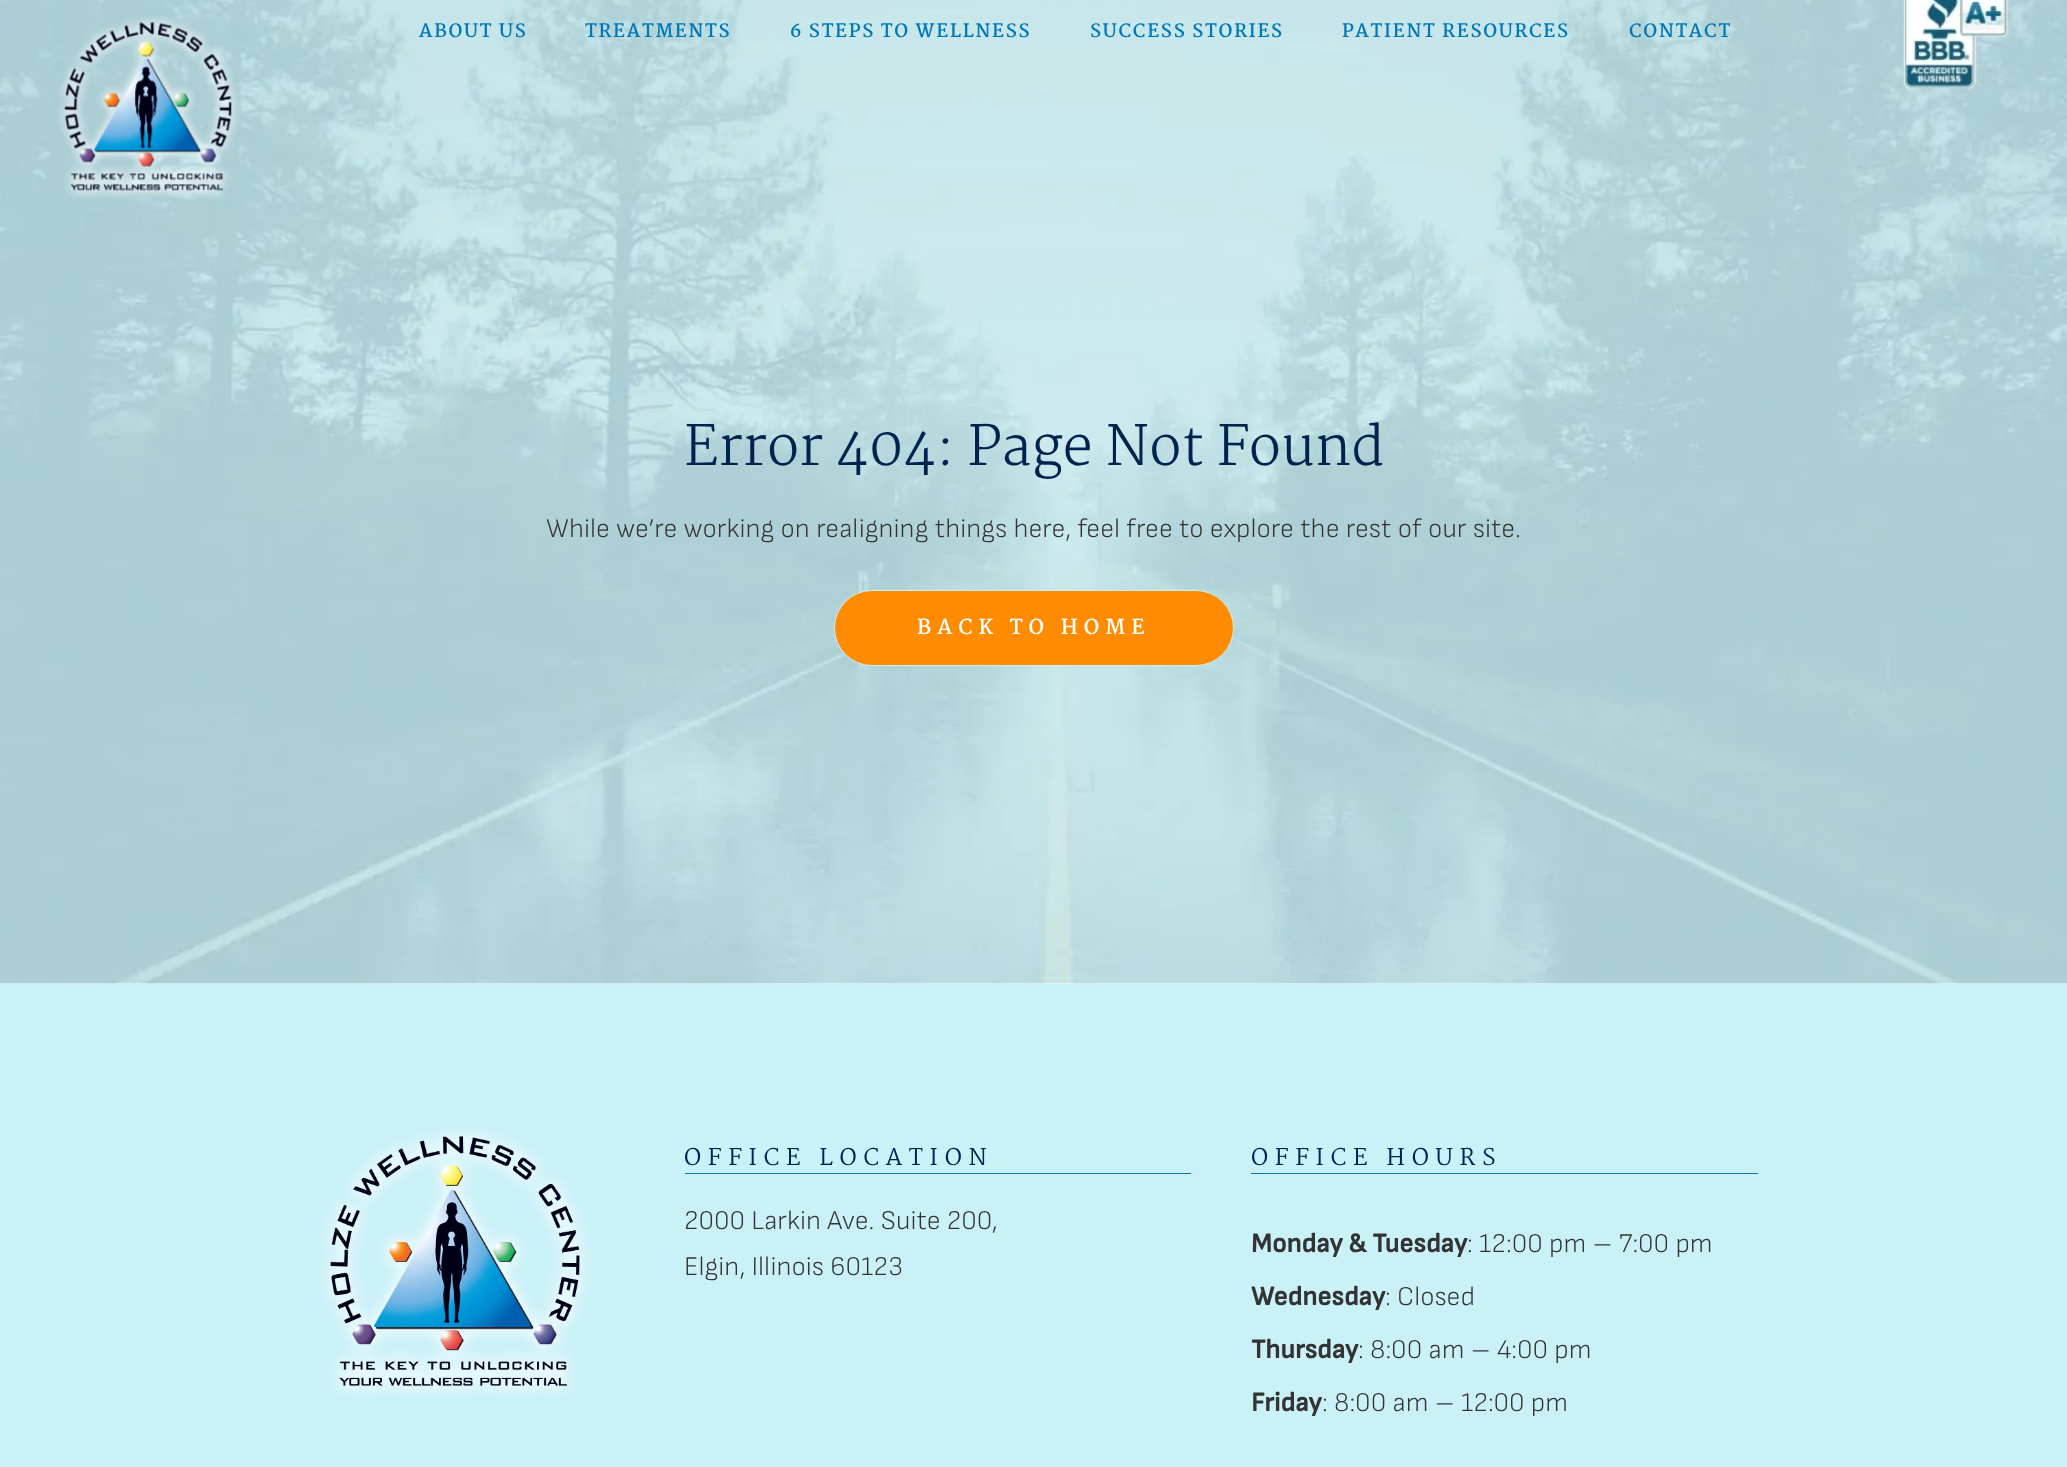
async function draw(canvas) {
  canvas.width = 2067;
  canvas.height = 1467;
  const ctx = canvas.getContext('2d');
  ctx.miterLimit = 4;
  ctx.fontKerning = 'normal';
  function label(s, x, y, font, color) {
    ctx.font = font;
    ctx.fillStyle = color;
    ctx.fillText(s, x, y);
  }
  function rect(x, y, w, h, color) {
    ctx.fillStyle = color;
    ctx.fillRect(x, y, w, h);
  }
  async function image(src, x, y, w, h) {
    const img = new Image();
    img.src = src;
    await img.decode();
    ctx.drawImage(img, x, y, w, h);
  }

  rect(0, 0, 2067, 1467, '#fff');
  await image('assets/img3.png', 0, 0, 2067, 984);
  await image('assets/img1.png', 58, 16, 182, 183);
  ctx.letterSpacing = '1.75px';
  label('ABOUT US', 419, 37, 'bold 18px Martel', '#0078b7');
  label('TREATMENTS', 585, 37, 'bold 18px Martel', '#0078b7');
  label('6 STEPS TO WELLNESS', 790, 37, 'bold 18px Martel', '#0078b7');
  label('SUCCESS STORIES', 1090, 37, 'bold 18px Martel', '#0078b7');
  label('PATIENT RESOURCES', 1342, 37, 'bold 18px Martel', '#0078b7');
  label('CONTACT', 1629, 37, 'bold 18px Martel', '#0078b7');
  await image('assets/img2.png', 1902, 0, 110, 91);
  ctx.letterSpacing = '0px';
  label('Error 404: Page Not Found', 684, 465, '300 54px Martel', '#00224f');
  label('While we’re working on realigning things here, feel free to explore the rest of our site.', 546, 537, '300 27px Sofia Sans', '#333');
  ctx.fillStyle = '#ff8c00';
  ctx.beginPath();
  ctx.roundRect(834.5, 590.5, 399, 75, 37.5);
  ctx.fill();
  ctx.strokeStyle = '#caf1f8';
  ctx.stroke();
  ctx.letterSpacing = '6px';
  label('BACK TO HOME', 917, 634, 'bold 20.25px Martel', '#fff');
  rect(0, 984, 2067, 483, '#caf1f8');
  await image('assets/img4.png', 321, 1127, 270, 271);
  rect(685, 1173, 506, 1, '#0078b7');
  ctx.letterSpacing = '6.75px';
  label('OFFICE LOCATION', 684, 1165, '22.5px Martel', '#00224f');
  ctx.letterSpacing = '0px';
  label('2000 Larkin Ave. Suite 200,', 684, 1229, '300 27px Sofia Sans', '#333');
  label('Elgin, Illinois 60123', 684, 1275, '300 27px Sofia Sans', '#333');
  rect(1251, 1173, 507, 1, '#0078b7');
  ctx.letterSpacing = '6.75px';
  label('OFFICE HOURS', 1251, 1165, '22.5px Martel', '#00224f');
  ctx.letterSpacing = '0px';
  label('Monday & Tuesday', 1251, 1252, 'bold 27px Sofia Sans', '#333');
  label(': 12:00 pm – 7:00 pm', 1467, 1252, '300 27px Sofia Sans', '#333');
  label('Wednesday', 1251, 1305, 'bold 27px Sofia Sans', '#333');
  label(': Closed', 1385, 1305, '300 27px Sofia Sans', '#333');
  label('Thursday', 1251, 1358, 'bold 27px Sofia Sans', '#333');
  label(': 8:00 am – 4:00 pm', 1358, 1358, '300 27px Sofia Sans', '#333');
  label('Friday', 1251, 1411, 'bold 27px Sofia Sans', '#333');
  label(': 8:00 am – 12:00 pm', 1322, 1411, '300 27px Sofia Sans', '#333');
}

draw(document.querySelector('canvas'));
